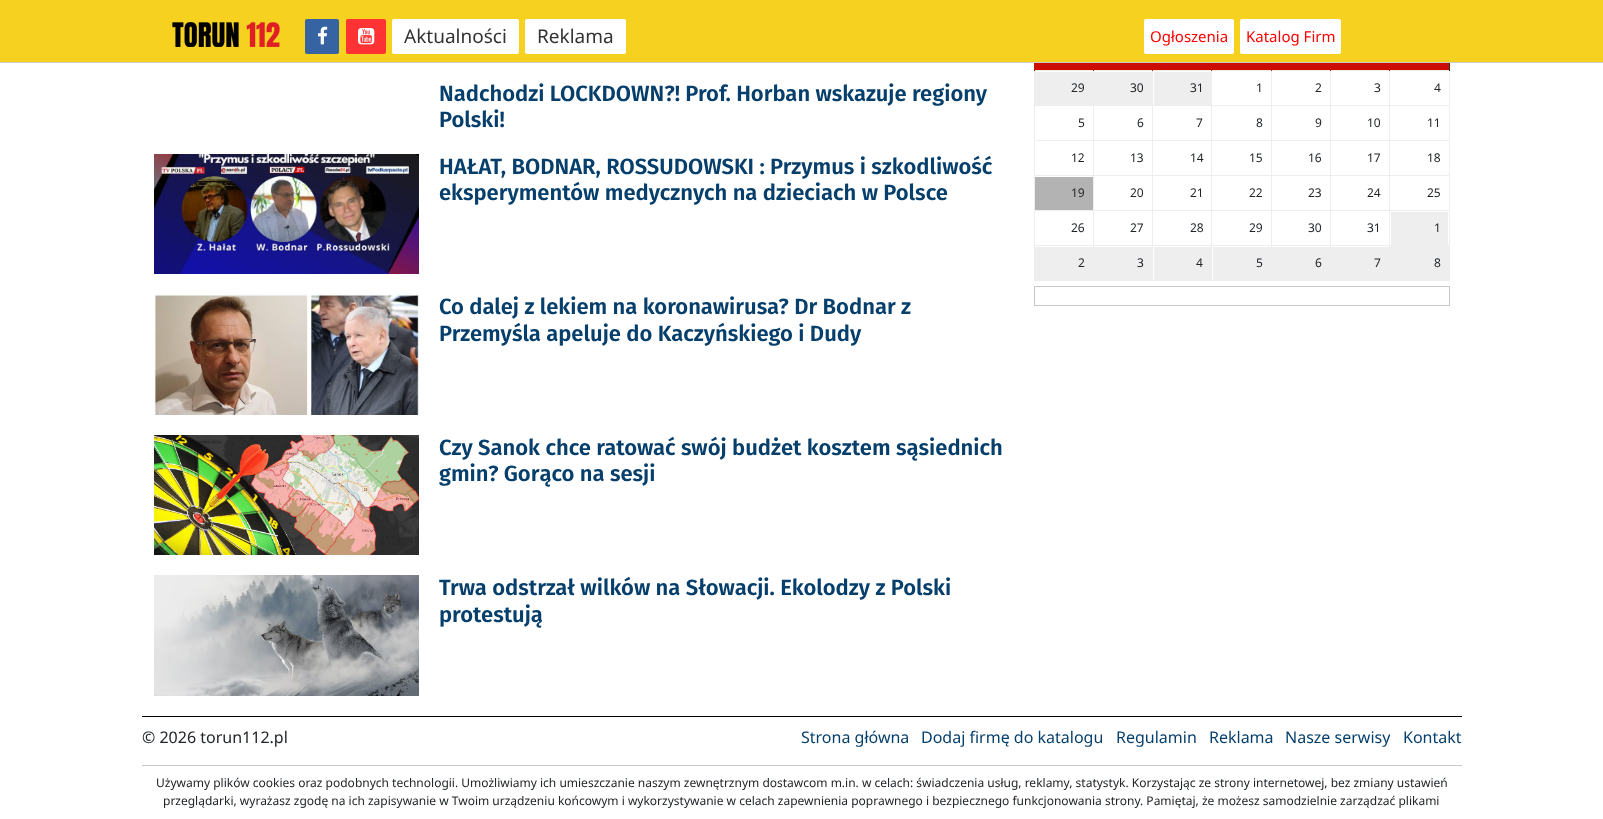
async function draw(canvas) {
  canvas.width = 1603;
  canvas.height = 819;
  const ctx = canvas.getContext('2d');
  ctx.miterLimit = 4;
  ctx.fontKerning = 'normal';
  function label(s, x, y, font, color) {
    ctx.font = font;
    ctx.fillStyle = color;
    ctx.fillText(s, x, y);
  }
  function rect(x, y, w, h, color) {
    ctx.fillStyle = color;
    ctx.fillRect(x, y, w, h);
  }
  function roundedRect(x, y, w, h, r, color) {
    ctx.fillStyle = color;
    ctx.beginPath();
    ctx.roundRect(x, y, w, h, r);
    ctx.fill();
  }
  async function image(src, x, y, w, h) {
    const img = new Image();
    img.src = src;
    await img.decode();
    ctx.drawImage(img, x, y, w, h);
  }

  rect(0, 0, 1603, 819, '#fff');
  rect(0, 0, 1603, 62, '#f7d11f');
  rect(0, 62, 1603, 1, '#ccc');
  await image('assets/img1.png', 172, 22, 108, 25);
  roundedRect(305, 19, 34, 35, 2, '#3664a2');
  await image('assets/img2.png', 318, 26, 10, 19);
  roundedRect(346, 19, 40, 35, 2, '#ff3334');
  await image('assets/img3.png', 358, 28, 17, 17);
  roundedRect(392, 19, 127, 35, 2, '#fff');
  label('Aktualności', 404, 43, '19px Noto Sans', '#333');
  roundedRect(525, 19, 101, 35, 2, '#fff');
  label('Reklama', 537, 43, '19px Noto Sans', '#333');
  roundedRect(1144, 19, 90, 35, 2, '#fff');
  label('Ogłoszenia', 1150, 42, '15px Noto Sans', '#ff0001');
  roundedRect(1240, 19, 101, 35, 2, '#fff');
  label('Katalog Firm', 1246, 42, '15px Noto Sans', '#ff0001');
  label('Nadchodzi LOCKDOWN?! Prof. Horban wskazuje regiony', 439, 101, '600 22px Fira Sans', '#063f6c');
  label('Polski!', 439, 127, '600 22px Fira Sans', '#063f6c');
  await image('assets/img4.png', 154, 154, 265, 120);
  label('HAŁAT, BODNAR, ROSSUDOWSKI : Przymus i szkodliwość', 439, 174, '600 22px Fira Sans', '#063f6c');
  label('eksperymentów medycznych na dzieciach w Polsce', 439, 200, '600 22px Fira Sans', '#063f6c');
  await image('assets/img5.png', 154, 294, 265, 121);
  label('Co dalej z lekiem na koronawirusa? Dr Bodnar z', 439, 314, '600 22px Fira Sans', '#063f6c');
  label('Przemyśla apeluje do Kaczyńskiego i Dudy', 439, 341, '600 22px Fira Sans', '#063f6c');
  await image('assets/img6.png', 154, 435, 265, 120);
  label('Czy Sanok chce ratować swój budżet kosztem sąsiednich', 439, 455, '600 22px Fira Sans', '#063f6c');
  label('gmin? Gorąco na sesji', 439, 481, '600 22px Fira Sans', '#063f6c');
  await image('assets/img7.png', 154, 575, 265, 121);
  label('Trwa odstrzał wilków na Słowacji. Ekolodzy z Polski', 439, 595, '600 22px Fira Sans', '#063f6c');
  label('protestują', 439, 622, '600 22px Fira Sans', '#063f6c');
  rect(1035, 63, 414, 7, '#cb0e00');
  rect(1389, 70, 61, 1, '#eee');
  rect(1389, 105, 61, 1, '#eee');
  rect(1389, 140, 61, 1, '#eee');
  rect(1389, 175, 61, 1, '#eee');
  rect(1389, 210, 61, 1, '#eee');
  rect(1389, 245, 61, 1, '#eee');
  rect(1449, 245, 1, 36, '#eee');
  rect(1389, 280, 61, 1, '#eee');
  rect(1389, 245, 1, 36, '#eee');
  rect(1330, 245, 60, 1, '#eee');
  rect(1389, 210, 1, 36, '#eee');
  rect(1330, 210, 60, 1, '#eee');
  rect(1389, 175, 1, 36, '#eee');
  rect(1330, 175, 60, 1, '#eee');
  rect(1389, 140, 1, 36, '#eee');
  rect(1330, 140, 60, 1, '#eee');
  rect(1389, 105, 1, 36, '#eee');
  rect(1330, 105, 60, 1, '#eee');
  rect(1389, 70, 1, 36, '#eee');
  rect(1330, 70, 60, 1, '#eee');
  rect(1330, 280, 60, 1, '#eee');
  rect(1330, 245, 1, 36, '#eee');
  rect(1271, 245, 60, 1, '#eee');
  rect(1330, 210, 1, 36, '#eee');
  rect(1271, 210, 60, 1, '#eee');
  rect(1330, 175, 1, 36, '#eee');
  rect(1271, 175, 60, 1, '#eee');
  rect(1330, 140, 1, 36, '#eee');
  rect(1271, 140, 60, 1, '#eee');
  rect(1330, 105, 1, 36, '#eee');
  rect(1271, 105, 60, 1, '#eee');
  rect(1330, 70, 1, 36, '#eee');
  rect(1271, 70, 60, 1, '#eee');
  rect(1271, 280, 60, 1, '#eee');
  rect(1271, 245, 1, 36, '#eee');
  rect(1211, 245, 61, 1, '#eee');
  rect(1271, 210, 1, 36, '#eee');
  rect(1211, 210, 61, 1, '#eee');
  rect(1271, 175, 1, 36, '#eee');
  rect(1211, 175, 61, 1, '#eee');
  rect(1271, 140, 1, 36, '#eee');
  rect(1211, 140, 61, 1, '#eee');
  rect(1271, 105, 1, 36, '#eee');
  rect(1211, 105, 61, 1, '#eee');
  rect(1271, 70, 1, 36, '#eee');
  rect(1211, 70, 61, 1, '#eee');
  rect(1211, 280, 61, 1, '#eee');
  rect(1211, 245, 1, 36, '#eee');
  rect(1152, 245, 60, 1, '#eee');
  rect(1211, 210, 1, 36, '#eee');
  rect(1152, 210, 60, 1, '#eee');
  rect(1211, 175, 1, 36, '#eee');
  rect(1152, 175, 60, 1, '#eee');
  rect(1211, 140, 1, 36, '#eee');
  rect(1152, 140, 60, 1, '#eee');
  rect(1211, 105, 1, 36, '#eee');
  rect(1152, 105, 60, 1, '#eee');
  rect(1211, 70, 1, 36, '#eee');
  rect(1152, 70, 60, 1, '#eee');
  rect(1152, 280, 60, 1, '#eee');
  rect(1152, 245, 1, 36, '#eee');
  rect(1093, 245, 60, 1, '#eee');
  rect(1152, 210, 1, 36, '#eee');
  rect(1093, 210, 60, 1, '#eee');
  rect(1152, 175, 1, 36, '#eee');
  rect(1093, 175, 60, 1, '#eee');
  rect(1152, 140, 1, 36, '#eee');
  rect(1093, 140, 60, 1, '#eee');
  rect(1152, 105, 1, 36, '#eee');
  rect(1093, 105, 60, 1, '#eee');
  rect(1152, 70, 1, 36, '#eee');
  rect(1093, 70, 60, 1, '#eee');
  rect(1093, 280, 60, 1, '#eee');
  rect(1093, 245, 1, 36, '#eee');
  rect(1034, 245, 60, 1, '#eee');
  rect(1093, 210, 1, 36, '#eee');
  rect(1034, 210, 60, 1, '#eee');
  rect(1093, 175, 1, 36, '#eee');
  rect(1034, 175, 60, 1, '#eee');
  rect(1093, 140, 1, 36, '#eee');
  rect(1034, 140, 60, 1, '#eee');
  rect(1093, 105, 1, 36, '#eee');
  rect(1034, 105, 60, 1, '#eee');
  rect(1093, 70, 1, 36, '#eee');
  rect(1034, 70, 60, 1, '#eee');
  rect(1034, 280, 60, 1, '#eee');
  rect(1034, 245, 1, 36, '#eee');
  rect(1034, 210, 1, 36, '#eee');
  rect(1034, 175, 1, 36, '#eee');
  rect(1034, 140, 1, 36, '#eee');
  rect(1034, 105, 1, 36, '#eee');
  rect(1034, 70, 1, 36, '#eee');
  rect(1034, 63, 1, 8, '#cb0e00');
  rect(1093, 63, 1, 8, '#cb0e00');
  rect(1152, 63, 1, 8, '#cb0e00');
  rect(1211, 63, 1, 8, '#cb0e00');
  rect(1271, 63, 1, 8, '#cb0e00');
  rect(1330, 63, 1, 8, '#cb0e00');
  rect(1449, 210, 1, 36, '#eee');
  rect(1449, 175, 1, 36, '#eee');
  rect(1449, 140, 1, 36, '#eee');
  rect(1449, 105, 1, 36, '#eee');
  rect(1449, 70, 1, 36, '#eee');
  rect(1449, 63, 1, 8, '#332c22');
  rect(1389, 63, 1, 8, '#cb0e00');
  rect(1035, 72, 58, 33, '#eee');
  label('29', 1071, 92, '12px Noto Sans', '#212529');
  rect(1094, 72, 58, 33, '#eee');
  label('30', 1130, 92, '12px Noto Sans', '#212529');
  rect(1154, 72, 57, 33, '#eee');
  label('31', 1190, 92, '12px Noto Sans', '#212529');
  label('1', 1256, 92, '12px Noto Sans', '#212529');
  label('2', 1315, 92, '12px Noto Sans', '#212529');
  label('3', 1374, 92, '12px Noto Sans', '#212529');
  label('4', 1434, 92, '12px Noto Sans', '#212529');
  label('5', 1078, 127, '12px Noto Sans', '#212529');
  label('6', 1137, 127, '12px Noto Sans', '#212529');
  label('7', 1196, 127, '12px Noto Sans', '#212529');
  label('8', 1256, 127, '12px Noto Sans', '#212529');
  label('9', 1315, 127, '12px Noto Sans', '#212529');
  label('10', 1367, 127, '12px Noto Sans', '#212529');
  label('11', 1427, 127, '12px Noto Sans', '#212529');
  label('12', 1071, 162, '12px Noto Sans', '#212529');
  label('13', 1130, 162, '12px Noto Sans', '#212529');
  label('14', 1190, 162, '12px Noto Sans', '#212529');
  label('15', 1249, 162, '12px Noto Sans', '#212529');
  label('16', 1308, 162, '12px Noto Sans', '#212529');
  label('17', 1367, 162, '12px Noto Sans', '#212529');
  label('18', 1427, 162, '12px Noto Sans', '#212529');
  rect(1035, 177, 58, 33, '#b3b3b3');
  label('19', 1071, 197, '12px Noto Sans', '#212529');
  label('20', 1130, 197, '12px Noto Sans', '#212529');
  label('21', 1190, 197, '12px Noto Sans', '#212529');
  label('22', 1249, 197, '12px Noto Sans', '#212529');
  label('23', 1308, 197, '12px Noto Sans', '#212529');
  label('24', 1367, 197, '12px Noto Sans', '#212529');
  label('25', 1427, 197, '12px Noto Sans', '#212529');
  label('26', 1071, 232, '12px Noto Sans', '#212529');
  label('27', 1130, 232, '12px Noto Sans', '#212529');
  label('28', 1190, 232, '12px Noto Sans', '#212529');
  label('29', 1249, 232, '12px Noto Sans', '#212529');
  label('30', 1308, 232, '12px Noto Sans', '#212529');
  label('31', 1367, 232, '12px Noto Sans', '#212529');
  rect(1391, 212, 57, 33, '#eee');
  label('1', 1434, 232, '12px Noto Sans', '#212529');
  rect(1035, 247, 58, 33, '#eee');
  label('2', 1078, 267, '12px Noto Sans', '#212529');
  rect(1094, 247, 58, 33, '#eee');
  label('3', 1137, 267, '12px Noto Sans', '#212529');
  rect(1154, 247, 57, 33, '#eee');
  label('4', 1196, 267, '12px Noto Sans', '#212529');
  rect(1213, 247, 58, 33, '#eee');
  label('5', 1256, 267, '12px Noto Sans', '#212529');
  rect(1272, 247, 58, 33, '#eee');
  label('6', 1315, 267, '12px Noto Sans', '#212529');
  rect(1331, 247, 58, 33, '#eee');
  label('7', 1374, 267, '12px Noto Sans', '#212529');
  rect(1390, 246, 59, 34, '#eee');
  label('8', 1434, 267, '12px Noto Sans', '#212529');
  ctx.strokeStyle = '#c7c7c7';
  ctx.strokeRect(1034.5, 286.5, 415, 19);
  rect(142, 716, 1320, 1, '#000');
  label('© 2026 torun112.pl', 142, 743, '16px Noto Sans', '#212529');
  label('Strona główna', 801, 743, '16px Noto Sans', '#063f6c');
  label('Dodaj firmę do katalogu', 921, 743, '16px Noto Sans', '#063f6c');
  label('Regulamin', 1116, 743, '16px Noto Sans', '#063f6c');
  label('Reklama', 1209, 743, '16px Noto Sans', '#063f6c');
  label('Nasze serwisy', 1285, 743, '16px Noto Sans', '#063f6c');
  label('Kontakt', 1403, 743, '16px Noto Sans', '#063f6c');
  rect(142, 765, 1320, 1, '#c8c9ca');
  label('Używamy plików cookies oraz podobnych technologii. Umożliwiamy ich umieszczanie naszym zewnętrznym dostawcom m.in. w celach: świadczenia usług, reklamy, statystyk. Korzystając ze strony internetowej, bez zmiany ustawień', 156, 787, '12px Noto Sans', '#212529');
  label('przeglądarki, wyrażasz zgodę na ich zapisywanie w Twoim urządzeniu końcowym i wykorzystywanie w celach zapewnienia poprawnego i bezpiecznego funkcjonowania strony. Pamiętaj, że możesz samodzielnie zarządzać plikami', 163, 805, '12px Noto Sans', '#212529');
}

draw(document.querySelector('canvas'));
